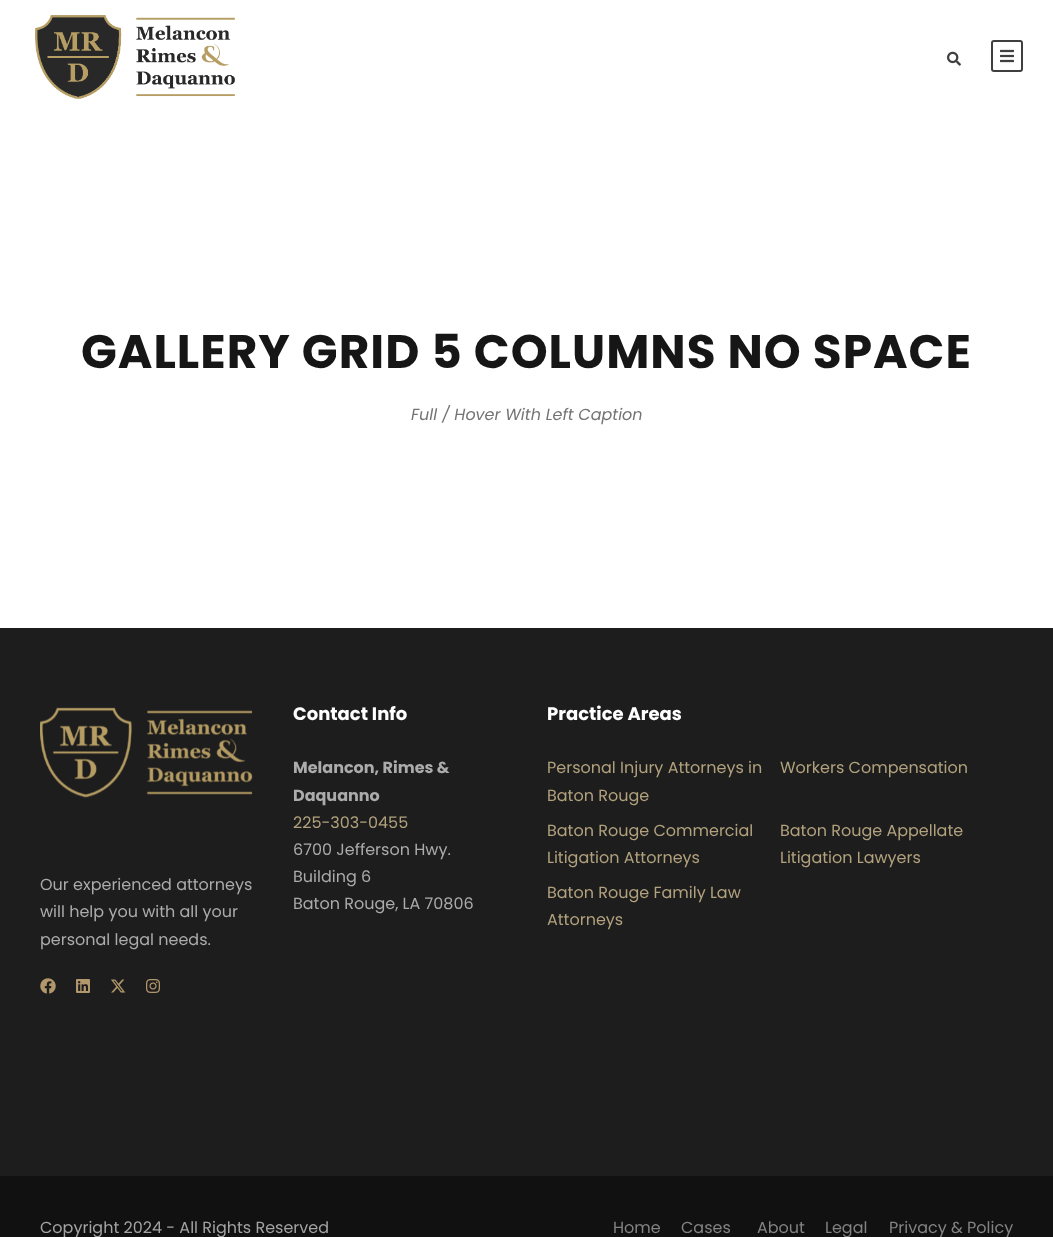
async function draw(canvas) {
  canvas.width = 1053;
  canvas.height = 1237;
  const ctx = canvas.getContext('2d');
  ctx.miterLimit = 4;
  ctx.fontKerning = 'normal';
  function label(s, x, y, font, color) {
    ctx.font = font;
    ctx.fillStyle = color;
    ctx.fillText(s, x, y);
  }
  function rect(x, y, w, h, color) {
    ctx.fillStyle = color;
    ctx.fillRect(x, y, w, h);
  }
  async function image(src, x, y, w, h) {
    const img = new Image();
    img.src = src;
    await img.decode();
    ctx.drawImage(img, x, y, w, h);
  }

  rect(0, 0, 1053, 1237, '#fff');
  await image('assets/img1.png', 35, 15, 200, 84);
  await image('assets/img2.png', 947, 51, 14, 15);
  ctx.beginPath();
  ctx.roundRect(992, 41, 30, 30, 2);
  ctx.strokeStyle = '#3f3f3f';
  ctx.lineWidth = 2;
  ctx.stroke();
  await image('assets/img3.png', 1000, 49, 14, 14);
  ctx.letterSpacing = '1px';
  label('GALLERY GRID 5 COLUMNS NO SPACE', 81, 368, 'bold 47px Poppins', '#161616');
  ctx.letterSpacing = '0px';
  label('Full / Hover With Left Caption', 411, 420, 'italic 16px Poppins', '#747474');
  rect(0, 628, 1053, 548, '#1d1d1d');
  await image('assets/img4.png', 40, 707, 213, 91);
  label('Our experienced attorneys', 40, 890, '16px Poppins', '#ababab');
  label('will help you with all your', 40, 917, '16px Poppins', '#ababab');
  label('personal legal needs.', 40, 945, '16px Poppins', '#ababab');
  await image('assets/img5.png', 40, 978, 16, 16);
  await image('assets/img6.png', 76, 979, 14, 14);
  await image('assets/img7.png', 111, 979, 15, 14);
  await image('assets/img8.png', 146, 979, 14, 14);
  label('Contact Info', 293, 720, 'bold 18px Poppins', '#fff');
  label('Melancon, Rimes &', 293, 773, 'bold 16px Poppins', '#ababab');
  label('Daquanno', 293, 801, 'bold 16px Poppins', '#ababab');
  label('225-303-0455', 293, 828, '16px Poppins', '#b1a17d');
  label('6700 Jefferson Hwy.', 293, 855, '16px Poppins', '#ababab');
  label('Building 6', 293, 882, '16px Poppins', '#ababab');
  label('Baton Rouge, LA 70806', 293, 909, '16px Poppins', '#ababab');
  label('Practice Areas', 547, 720, 'bold 18px Poppins', '#fff');
  label('Personal Injury Attorneys in', 547, 773, '16px Poppins', '#b1a17d');
  label('Baton Rouge', 547, 801, '16px Poppins', '#b1a17d');
  label('Workers Compensation', 780, 773, '16px Poppins', '#b1a17d');
  label('Baton Rouge Commercial', 547, 836, '16px Poppins', '#b1a17d');
  label('Litigation Attorneys', 547, 863, '16px Poppins', '#b1a17d');
  label('Baton Rouge Appellate', 780, 836, '16px Poppins', '#b1a17d');
  label('Litigation Lawyers', 780, 863, '16px Poppins', '#b1a17d');
  label('Baton Rouge Family Law', 547, 898, '16px Poppins', '#b1a17d');
  label('Attorneys', 547, 925, '16px Poppins', '#b1a17d');
  rect(0, 1176, 1053, 61, '#111');
  label('Copyright 2024 - All Rights Reserved', 40, 1233, '16px Poppins', '#a3a3a3');
  label('Home', 613, 1233, '16px Poppins', '#838383');
  label('Cases', 681, 1233, '16px Poppins', '#838383');
  label('About', 757, 1233, '16px Poppins', '#838383');
  label('Legal', 825, 1233, '16px Poppins', '#838383');
  label('Privacy & Policy', 889, 1233, '16px Poppins', '#838383');
}

draw(document.querySelector('canvas'));
